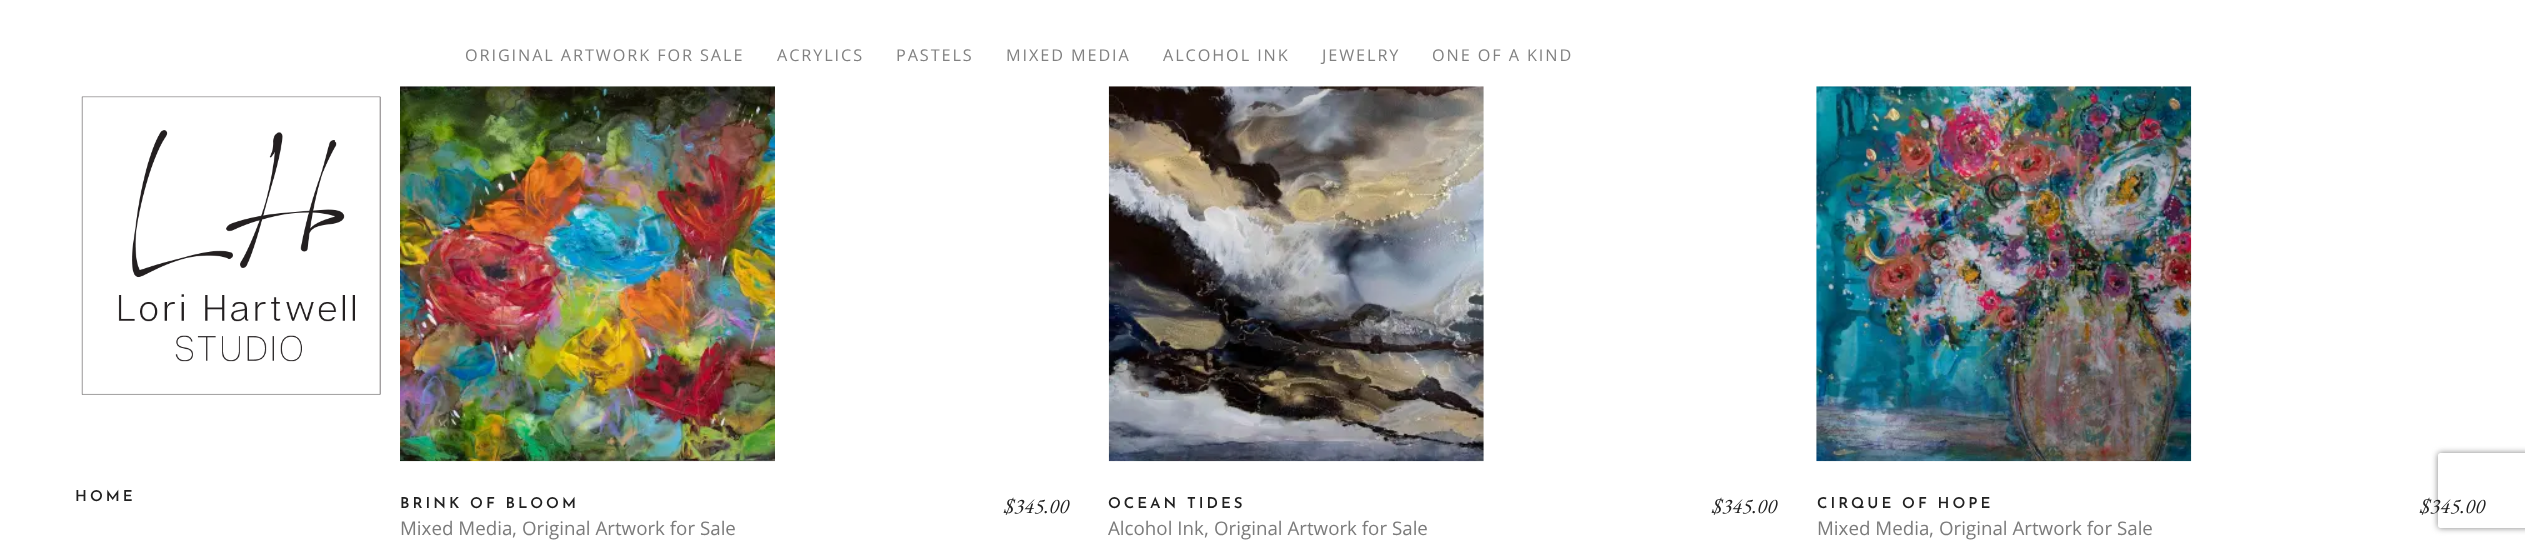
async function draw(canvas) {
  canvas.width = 2525;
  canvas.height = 545;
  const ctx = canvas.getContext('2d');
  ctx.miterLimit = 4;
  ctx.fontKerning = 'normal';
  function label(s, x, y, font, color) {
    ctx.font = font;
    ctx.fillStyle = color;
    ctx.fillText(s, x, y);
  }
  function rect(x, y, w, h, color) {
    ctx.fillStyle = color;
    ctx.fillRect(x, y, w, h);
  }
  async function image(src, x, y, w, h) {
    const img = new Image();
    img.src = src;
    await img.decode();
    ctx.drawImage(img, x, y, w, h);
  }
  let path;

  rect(0, 0, 2525, 545, '#fff');
  await image('assets/img1.png', 81, 96, 300, 299);
  ctx.letterSpacing = '3px';
  label('HOME', 75, 501, '600 15px Josefin Sans', '#212121');
  ctx.letterSpacing = '1.9px';
  label('ORIGINAL ARTWORK FOR SALE', 465, 61, '16.25px Open Sans', '#818181');
  label('ACRYLICS', 777, 61, '16.25px Open Sans', '#818181');
  label('PASTELS', 896, 61, '16.25px Open Sans', '#818181');
  label('MIXED MEDIA', 1006, 61, '16.25px Open Sans', '#818181');
  label('ALCOHOL INK', 1163, 61, '16.25px Open Sans', '#818181');
  label('JEWELRY', 1322, 61, '16.25px Open Sans', '#818181');
  label('ONE OF A KIND', 1432, 61, '16.25px Open Sans', '#818181');
  await image('assets/img2.png', 400, 86, 375, 376);
  ctx.letterSpacing = '3px';
  label('BRINK OF BLOOM', 400, 508, '600 15px Josefin Sans', '#212121');
  ctx.letterSpacing = '0px';
  label('$345.00', 1004, 513, 'italic 21px EB Garamond', '#212121');
  label('Mixed Media', 400, 535, '18.75px Open Sans', '#7b7b7b');
  label(',', 512, 535, '18.75px Open Sans', '#7b7b7b');
  label('Original Artwork for Sale', 522, 535, '18.75px Open Sans', '#7b7b7b');
  await image('assets/img3.png', 1108, 86, 376, 376);
  ctx.letterSpacing = '3px';
  label('OCEAN TIDES', 1108, 508, '600 15px Josefin Sans', '#212121');
  ctx.letterSpacing = '0px';
  label('$345.00', 1712, 513, 'italic 21px EB Garamond', '#212121');
  label('Alcohol Ink', 1108, 535, '18.75px Open Sans', '#7b7b7b');
  label(',', 1204, 535, '18.75px Open Sans', '#7b7b7b');
  label('Original Artwork for Sale', 1214, 535, '18.75px Open Sans', '#7b7b7b');
  await image('assets/img4.png', 1816, 86, 376, 376);
  ctx.letterSpacing = '3px';
  label('CIRQUE OF HOPE', 1817, 508, '600 15px Josefin Sans', '#212121');
  ctx.save();
  path = new Path2D('M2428 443H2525V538H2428ZM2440.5 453H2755.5C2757 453 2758 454 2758 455.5V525.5C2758 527 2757 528 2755.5 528H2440.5C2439 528 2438 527 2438 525.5V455.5C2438 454 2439 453 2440.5 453Z');
  ctx.clip(path, 'evenodd');
  ctx.fillStyle = '#808080';
  ctx.filter = 'blur(3px)';
  ctx.beginPath();
  ctx.roundRect(2438, 453, 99, 75, 2.5);
  ctx.fill();
  ctx.filter = 'none';
  ctx.restore();
  ctx.letterSpacing = '0px';
  label('$345.00', 2420, 513, 'italic 21px EB Garamond', '#212121');
  label('Mixed Media', 1817, 535, '18.75px Open Sans', '#7b7b7b');
  label(',', 1929, 535, '18.75px Open Sans', '#7b7b7b');
  label('Original Artwork for Sale', 1939, 535, '18.75px Open Sans', '#7b7b7b');
}

draw(document.querySelector('canvas'));
